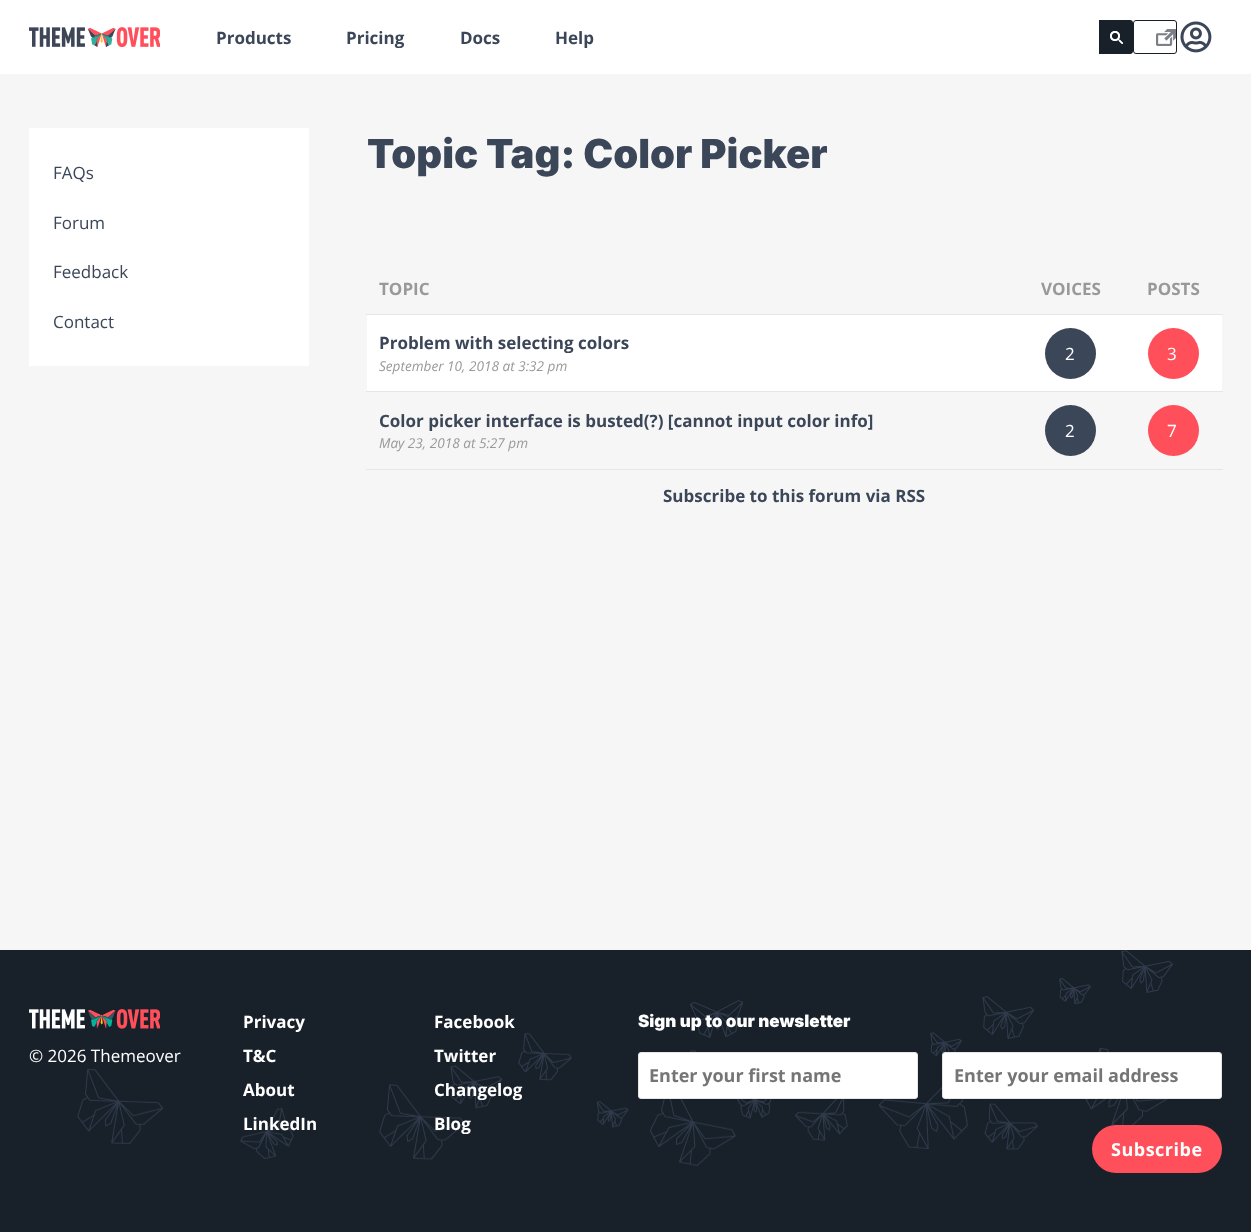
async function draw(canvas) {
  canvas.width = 1251;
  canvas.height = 1232;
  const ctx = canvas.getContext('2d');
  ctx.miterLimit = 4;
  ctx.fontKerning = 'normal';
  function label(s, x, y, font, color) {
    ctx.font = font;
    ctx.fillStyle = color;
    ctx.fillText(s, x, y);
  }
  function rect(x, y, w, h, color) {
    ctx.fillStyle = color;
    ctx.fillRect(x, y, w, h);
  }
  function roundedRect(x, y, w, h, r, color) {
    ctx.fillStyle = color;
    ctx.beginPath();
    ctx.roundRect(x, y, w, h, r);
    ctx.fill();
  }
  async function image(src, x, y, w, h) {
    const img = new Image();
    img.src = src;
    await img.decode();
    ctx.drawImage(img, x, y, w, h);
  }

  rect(0, 0, 1251, 1232, '#f6f6f6');
  rect(0, 0, 1251, 74, '#fff');
  await image('assets/img1.png', 29, 27, 131, 20);
  label('Products', 216, 44, 'bold 17px Open Sans', '#3b4658');
  label('Pricing', 346, 44, 'bold 17px Open Sans', '#3b4658');
  label('Docs', 460, 44, 'bold 17px Open Sans', '#3b4658');
  label('Help', 555, 44, 'bold 17px Open Sans', '#3b4658');
  ctx.fillStyle = '#18202a';
  ctx.beginPath();
  ctx.roundRect(1099, 20, 34, 34, [0, 3, 3, 0]);
  ctx.fill();
  await image('assets/img2.png', 1110, 31, 13, 13);
  await image('assets/img3.png', 1156, 29, 20, 17);
  ctx.beginPath();
  ctx.roundRect(1133.5, 20.5, 43, 33, 2.5);
  ctx.strokeStyle = '#18202a';
  ctx.stroke();
  await image('assets/img4.png', 1180, 21, 32, 32);
  rect(29, 128, 280, 238, '#fff');
  label('FAQs', 53, 179, '17px Open Sans', '#3b4658');
  label('Forum', 53, 229, '17px Open Sans', '#3b4658');
  label('Feedback', 53, 278, '17px Open Sans', '#3b4658');
  label('Contact', 53, 328, '17px Open Sans', '#3b4658');
  label('Topic Tag: Color Picker', 367, 168, '900 40px Inter', '#3b4658');
  label('TOPIC', 379, 295, 'bold 17px Open Sans', '#999998');
  label('VOICES', 1041, 295, 'bold 17px Open Sans', '#999998');
  rect(366, 314, 857, 1, '#e6e6e6');
  label('POSTS', 1147, 295, 'bold 17px Open Sans', '#999998');
  rect(367, 315, 855, 76, '#fff');
  label('Problem with selecting colors', 379, 349, 'bold 17px Open Sans', '#3b4658');
  label('September 10, 2018 at 3:32 pm', 379, 371, 'italic 13.6px Open Sans', '#999998');
  ctx.fillStyle = '#3b4658';
  ctx.beginPath();
  ctx.arc(1070.5, 353.5, 25.5, 0, 2 * Math.PI);
  ctx.fill();
  ctx.letterSpacing = '2px';
  label('2', 1065, 360, '17px Open Sans', '#fff');
  rect(366, 391, 857, 1, '#e6e6e6');
  ctx.fillStyle = '#ff4f5b';
  ctx.beginPath();
  ctx.arc(1173.5, 353.5, 25.5, 0, 2 * Math.PI);
  ctx.fill();
  label('3', 1167, 360, '17px Open Sans', '#fff');
  ctx.letterSpacing = '0px';
  label('Color picker interface is busted(?) [cannot input color info]', 379, 427, 'bold 17px Open Sans', '#3b4658');
  label('May 23, 2018 at 5:27 pm', 379, 448, 'italic 13.6px Open Sans', '#999998');
  ctx.fillStyle = '#3b4658';
  ctx.beginPath();
  ctx.arc(1070.5, 430.5, 25.5, 0, 2 * Math.PI);
  ctx.fill();
  ctx.letterSpacing = '2px';
  label('2', 1065, 437, '17px Open Sans', '#fff');
  rect(366, 469, 857, 1, '#e6e6e6');
  ctx.fillStyle = '#ff4f5b';
  ctx.beginPath();
  ctx.arc(1173.5, 430.5, 25.5, 0, 2 * Math.PI);
  ctx.fill();
  label('7', 1167, 437, '17px Open Sans', '#fff');
  ctx.letterSpacing = '0px';
  label('Subscribe to this forum via RSS', 663, 502, 'bold 17px Open Sans', '#3b4658');
  rect(0, 950, 1251, 282, '#18202a');
  await image('assets/img5.png', 77, 950, 1096, 216);
  await image('assets/img6.png', 29, 1009, 131, 20);
  label('© 2026 Themeover', 29, 1062, '17px Open Sans', '#fff');
  label('Privacy', 243, 1028, 'bold 17px Open Sans', '#fff');
  label('Facebook', 434, 1028, 'bold 17px Open Sans', '#fff');
  label('T&C', 243, 1062, 'bold 17px Open Sans', '#fff');
  label('Twitter', 434, 1062, 'bold 17px Open Sans', '#fff');
  label('About', 243, 1096, 'bold 17px Open Sans', '#fff');
  label('Changelog', 434, 1096, 'bold 17px Open Sans', '#fff');
  label('LinkedIn', 243, 1130, 'bold 17px Open Sans', '#fff');
  label('Blog', 434, 1130, 'bold 17px Open Sans', '#fff');
  label('Sign up to our newsletter', 638, 1027, '900 17px Inter', '#fff');
  ctx.beginPath();
  ctx.roundRect(638.5, 1052.5, 279, 46, 2.5);
  ctx.fill();
  ctx.strokeStyle = '#e6e6e6';
  ctx.stroke();
  label('Enter your first name', 649, 1082, 'bold 18px Open Sans', '#757575');
  ctx.fillStyle = '#fff';
  ctx.beginPath();
  ctx.roundRect(942.5, 1052.5, 279, 46, 2.5);
  ctx.fill();
  ctx.stroke();
  label('Enter your email address', 954, 1082, 'bold 18px Open Sans', '#757575');
  roundedRect(1092, 1125, 130, 48, 24, '#ff4f5b');
  ctx.letterSpacing = '0.5px';
  label('Subscribe', 1111, 1156, 'bold 18px Open Sans', '#fff');
}

draw(document.querySelector('canvas'));
